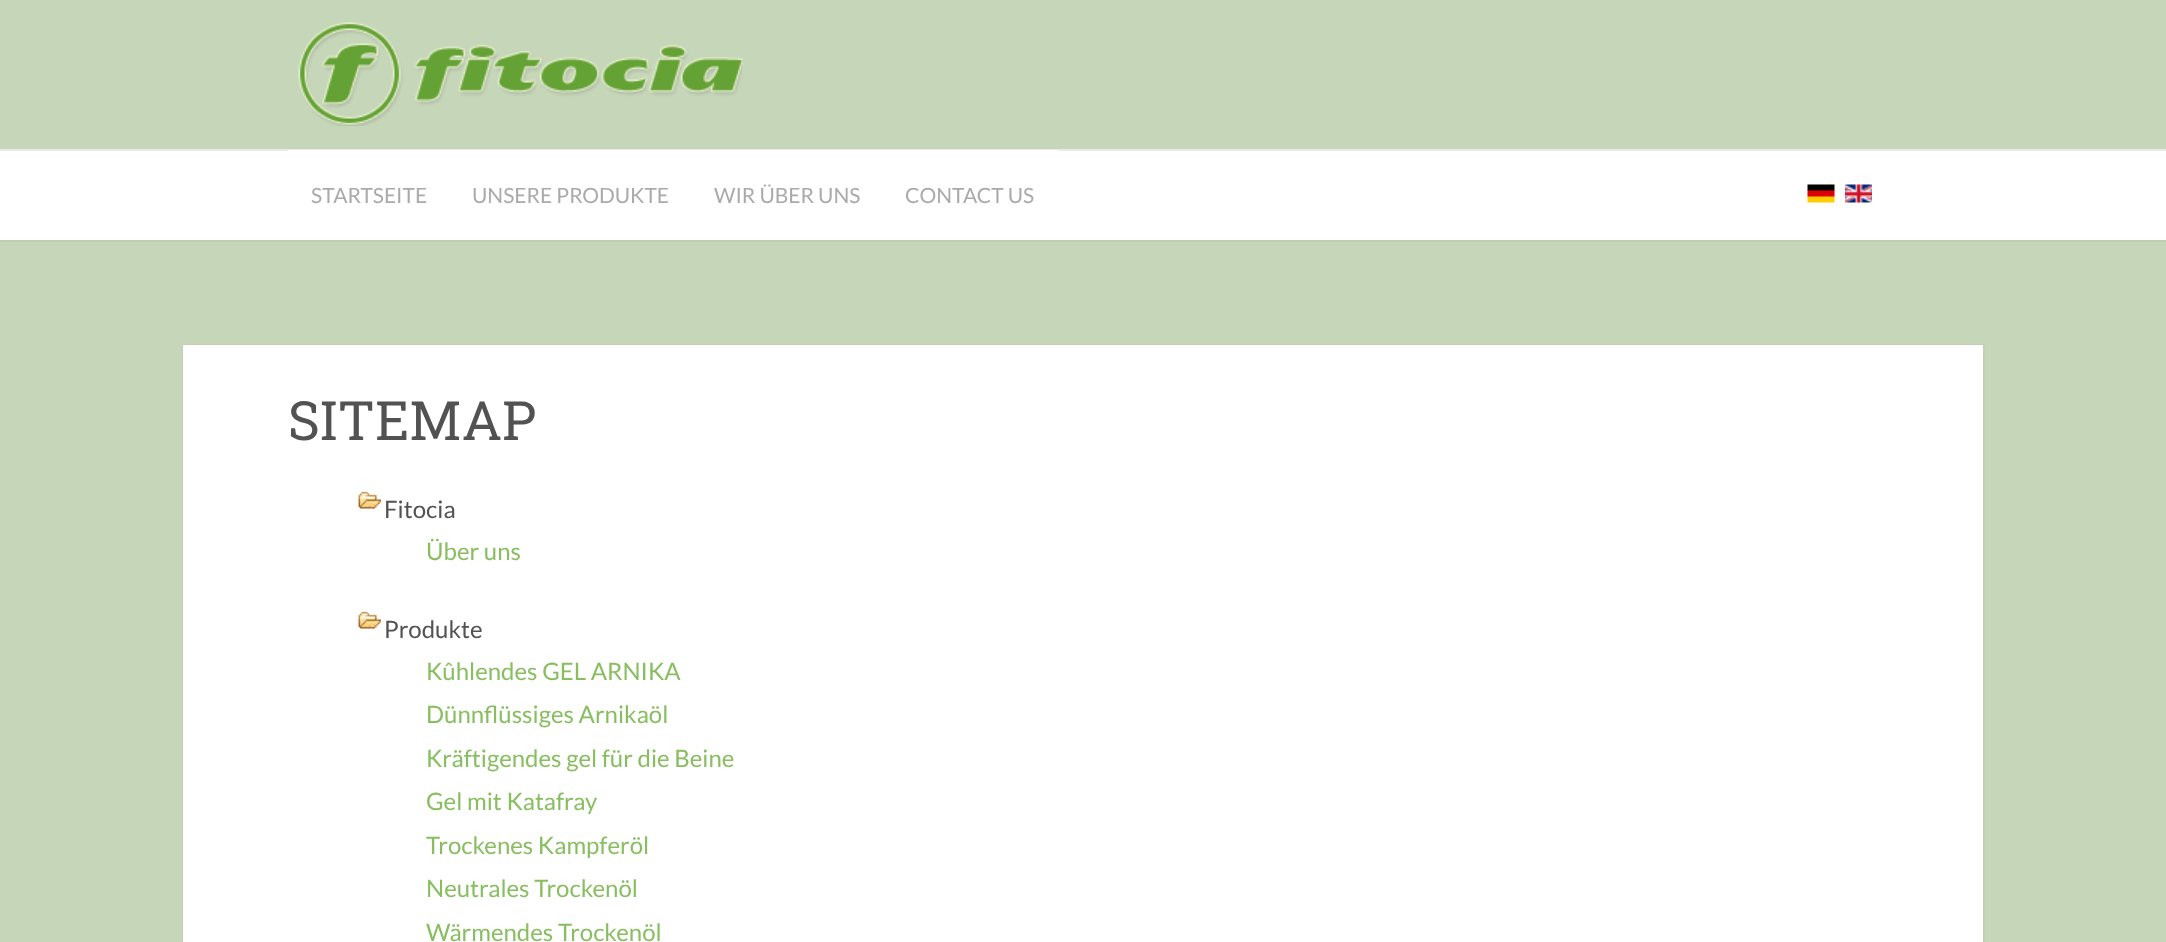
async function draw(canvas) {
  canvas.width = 2166;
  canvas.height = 942;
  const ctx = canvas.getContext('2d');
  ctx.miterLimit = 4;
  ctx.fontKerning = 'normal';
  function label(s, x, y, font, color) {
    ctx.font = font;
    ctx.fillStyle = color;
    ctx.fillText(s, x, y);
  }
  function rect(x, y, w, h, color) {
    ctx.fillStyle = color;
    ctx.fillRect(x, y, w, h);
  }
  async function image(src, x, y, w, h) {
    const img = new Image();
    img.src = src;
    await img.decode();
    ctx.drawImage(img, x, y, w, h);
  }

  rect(0, 0, 2166, 942, '#c6d6b9');
  await image('assets/img1.png', 298, 22, 445, 104);
  rect(0, 240, 2166, 2, '#c0cfb4');
  rect(0, 151, 2166, 89, '#fff');
  rect(0, 149, 2166, 2, '#eaeaea');
  rect(288, 150, 770, 1, '#fff');
  label('STARTSEITE', 311, 203, '21px Lato', '#aaa');
  label('UNSERE PRODUKTE', 472, 203, '21px Lato', '#aaa');
  label('WIR ÜBER UNS', 714, 203, '21px Lato', '#aaa');
  label('CONTACT US', 905, 203, '21px Lato', '#aaa');
  await image('assets/img2.png', 1807, 184, 28, 19);
  await image('assets/img3.png', 1845, 184, 27, 19);
  ctx.strokeStyle = '#c1d0b5';
  ctx.lineWidth = 2;
  ctx.strokeRect(183, 345, 1801, 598);
  rect(183, 345, 1800, 597, '#fff');
  label('SITEMAP', 288, 440, '54px Roboto Slab', '#525252');
  await image('assets/img4.png', 358, 491, 23, 18);
  label('Fitocia', 384, 518, '24px Lato', '#525252');
  label('Über uns', 426, 560, '24px Lato', '#88be60');
  await image('assets/img4.png', 358, 611, 23, 18);
  label('Produkte', 384, 638, '24px Lato', '#525252');
  label('Kûhlendes GEL ARNIKA', 426, 680, '24px Lato', '#88be60');
  label('Dünnflüssiges Arnikaöl', 426, 723, '24px Lato', '#88be60');
  label('Kräftigendes gel für die Beine', 426, 767, '24px Lato', '#88be60');
  label('Gel mit Katafray', 426, 810, '24px Lato', '#88be60');
  label('Trockenes Kampferöl', 426, 854, '24px Lato', '#88be60');
  label('Neutrales Trockenöl', 426, 897, '24px Lato', '#88be60');
  label('Wärmendes Trockenöl', 426, 941, '24px Lato', '#88be60');
}

draw(document.querySelector('canvas'));
